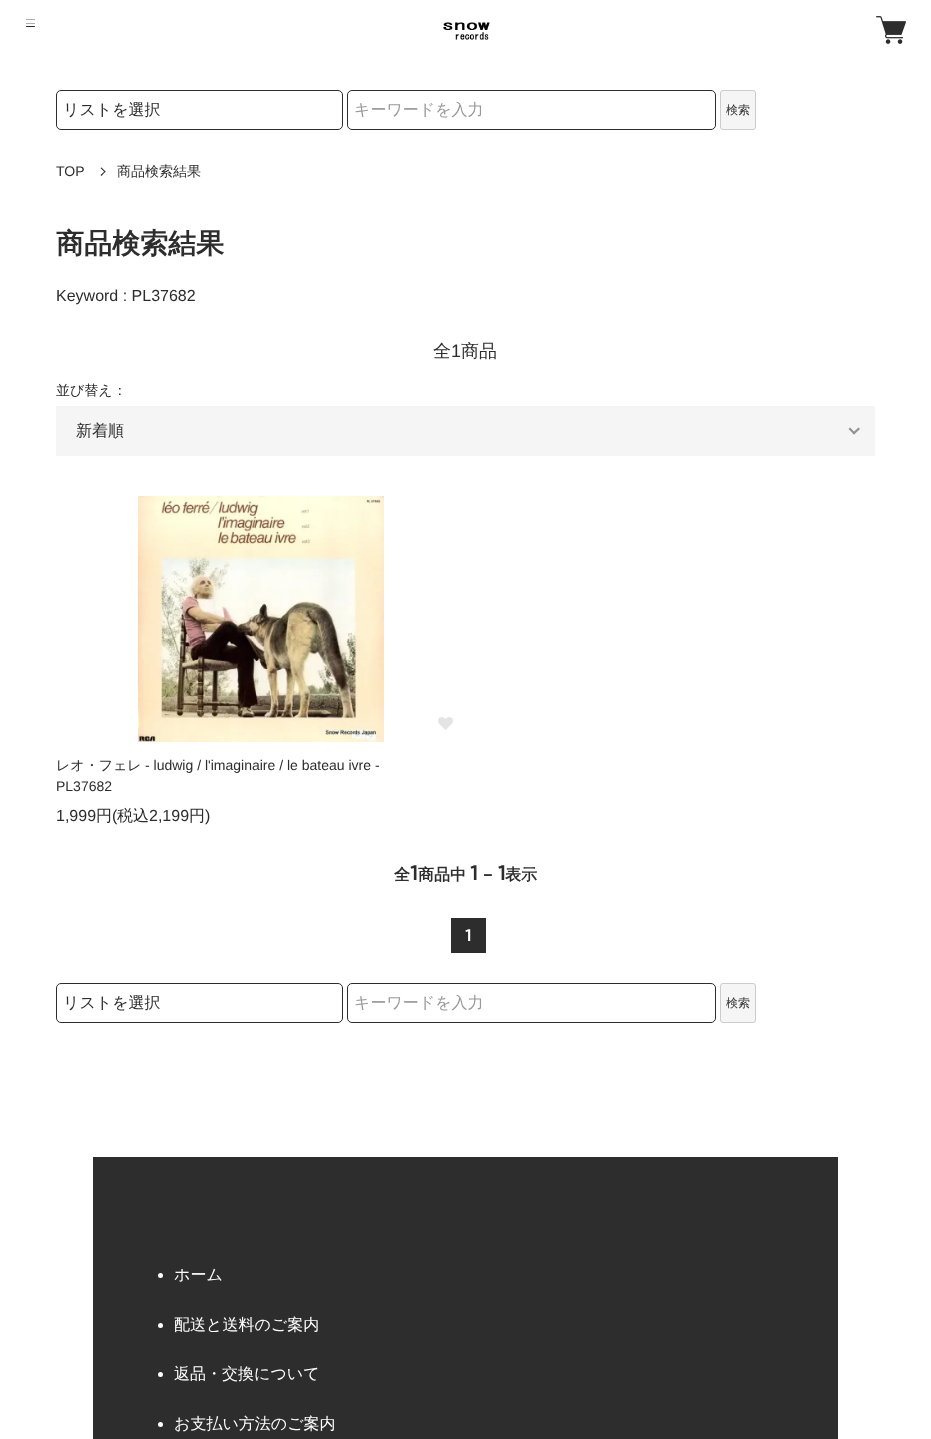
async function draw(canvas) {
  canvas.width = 931;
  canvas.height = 1439;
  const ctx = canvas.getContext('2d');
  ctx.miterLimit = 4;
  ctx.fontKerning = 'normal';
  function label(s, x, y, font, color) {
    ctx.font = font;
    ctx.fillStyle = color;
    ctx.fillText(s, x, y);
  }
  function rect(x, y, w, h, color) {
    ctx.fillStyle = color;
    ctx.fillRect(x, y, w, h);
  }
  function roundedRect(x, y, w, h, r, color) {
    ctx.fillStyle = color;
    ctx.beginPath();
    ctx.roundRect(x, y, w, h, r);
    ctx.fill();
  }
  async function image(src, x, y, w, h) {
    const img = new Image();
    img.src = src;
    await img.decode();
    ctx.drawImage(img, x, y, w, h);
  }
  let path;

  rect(0, 0, 931, 1439, '#fff');
  rect(26, 19, 9, 1, '#aeaeae');
  rect(26, 23, 9, 1, '#aeaeae');
  roundedRect(26, 26, 9, 1, 0.5, '#2d2d2d');
  await image('assets/img1.png', 443, 22, 47, 18);
  await image('assets/img2.png', 876, 16, 30, 28);
  ctx.beginPath();
  ctx.roundRect(56.5, 90.5, 286, 39, 4.5);
  ctx.strokeStyle = '#2d2d2d';
  ctx.stroke();
  label('リストを選択', 63, 115, '500 16px WenQuanYi Zen Hei', '#2d2d2d');
  ctx.beginPath();
  ctx.roundRect(347.5, 90.5, 368, 39, 4.5);
  ctx.stroke();
  label('キーワードを入力', 354, 115, '500 16px WenQuanYi Zen Hei', '#999');
  ctx.fillStyle = '#f5f5f5';
  ctx.beginPath();
  ctx.roundRect(720.5, 90.5, 35, 39, 2.5);
  ctx.fill();
  ctx.strokeStyle = '#ccc';
  ctx.stroke();
  label('検索', 726, 114, '500 12px WenQuanYi Zen Hei', '#333');
  label('TOP', 56, 176, '14px Liberation Sans', '#2d2d2d');
  path = new Path2D('M101.5 167.5L105.5 171.5L105 172.5L100.5 168Z');
  ctx.fill(path);
  path = new Path2D('M105 171L105.5 171.5L101.5 176L100.5 175Z');
  ctx.fill(path);
  label('商品検索結果', 117, 176, '500 14px WenQuanYi Zen Hei', '#2d2d2d');
  label('商品検索結果', 56, 253, 'bold 28px WenQuanYi Zen Hei', '#2d2d2d');
  label('Keyword : PL37682', 56, 301, '16px Liberation Sans', '#2d2d2d');
  label('全', 433, 357, '500 18px WenQuanYi Zen Hei', '#2d2d2d');
  label('1', 451, 357, '18px Liberation Sans', '#2d2d2d');
  label('商品', 461, 357, '500 18px WenQuanYi Zen Hei', '#2d2d2d');
  label('並び替え：', 56, 395, '500 14px WenQuanYi Zen Hei', '#2d2d2d');
  rect(56, 406, 819, 50, '#f5f5f5');
  label('新着順', 76, 436, '500 16px WenQuanYi Zen Hei', '#2d2d2d');
  ctx.fillStyle = '#919191';
  path = new Path2D('M858.5 427.5L860 429L854 434.5L852.5 433Z');
  ctx.fill(path);
  path = new Path2D('M850 427.5L855.5 433L854 434.5L848.5 429Z');
  ctx.fill(path);
  await image('assets/img3.png', 138, 496, 246, 246);
  await image('assets/img4.png', 438, 717, 15, 13);
  label('レオ・フェレ', 56, 770, '500 14px WenQuanYi Zen Hei', '#2d2d2d');
  label('- ludwig / l\'imaginaire / le bateau ivre -', 145, 770, '14px Liberation Sans', '#2d2d2d');
  label('PL37682', 56, 791, '14px Liberation Sans', '#2d2d2d');
  label('1,999', 56, 821, '16px Liberation Sans', '#2d2d2d');
  label('円', 96, 821, '500 16px WenQuanYi Zen Hei', '#2d2d2d');
  label('(', 112, 821, '16px Liberation Sans', '#2d2d2d');
  label('税込', 117, 821, '500 16px WenQuanYi Zen Hei', '#2d2d2d');
  label('2,199', 149, 821, '16px Liberation Sans', '#2d2d2d');
  label('円', 189, 821, '500 16px WenQuanYi Zen Hei', '#2d2d2d');
  label(')', 205, 821, '16px Liberation Sans', '#2d2d2d');
  label('全', 394, 880, 'bold 16px WenQuanYi Zen Hei', '#2d2d2d');
  label('1', 410, 880, '600 20px Kumbh Sans', '#2d2d2d');
  label('商品中', 418, 880, 'bold 16px WenQuanYi Zen Hei', '#2d2d2d');
  label('1 - 1', 470, 880, '600 20px Kumbh Sans', '#2d2d2d');
  label('表示', 505, 880, 'bold 16px WenQuanYi Zen Hei', '#2d2d2d');
  rect(451, 918, 35, 35, '#2d2d2d');
  label('1', 465, 941, '600 16px Kumbh Sans', '#fff');
  ctx.beginPath();
  ctx.roundRect(56.5, 983.5, 286, 39, 4.5);
  ctx.strokeStyle = '#2d2d2d';
  ctx.stroke();
  label('リストを選択', 63, 1008, '500 16px WenQuanYi Zen Hei', '#2d2d2d');
  ctx.beginPath();
  ctx.roundRect(347.5, 983.5, 368, 39, 4.5);
  ctx.stroke();
  label('キーワードを入力', 354, 1008, '500 16px WenQuanYi Zen Hei', '#999');
  ctx.fillStyle = '#f5f5f5';
  ctx.beginPath();
  ctx.roundRect(720.5, 983.5, 35, 39, 2.5);
  ctx.fill();
  ctx.strokeStyle = '#ccc';
  ctx.stroke();
  label('検索', 726, 1007, '500 12px WenQuanYi Zen Hei', '#333');
  rect(93, 1157, 745, 282, '#2d2d2d');
  ctx.fillStyle = '#fff';
  ctx.beginPath();
  ctx.arc(160.5, 1275.5, 2.5, 0, 2 * Math.PI);
  ctx.fill();
  label('ホーム', 174, 1280, '500 16px WenQuanYi Zen Hei', '#fff');
  ctx.beginPath();
  ctx.arc(160.5, 1325.5, 2.5, 0, 2 * Math.PI);
  ctx.fill();
  label('配送と送料のご案内', 174, 1330, '500 16px WenQuanYi Zen Hei', '#fff');
  ctx.beginPath();
  ctx.arc(160.5, 1374.5, 2.5, 0, 2 * Math.PI);
  ctx.fill();
  label('返品・交換について', 174, 1379, '500 16px WenQuanYi Zen Hei', '#fff');
  ctx.beginPath();
  ctx.arc(160.5, 1424.5, 2.5, 0, 2 * Math.PI);
  ctx.fill();
  label('お支払い方法のご案内', 174, 1429, '500 16px WenQuanYi Zen Hei', '#fff');
}

draw(document.querySelector('canvas'));
